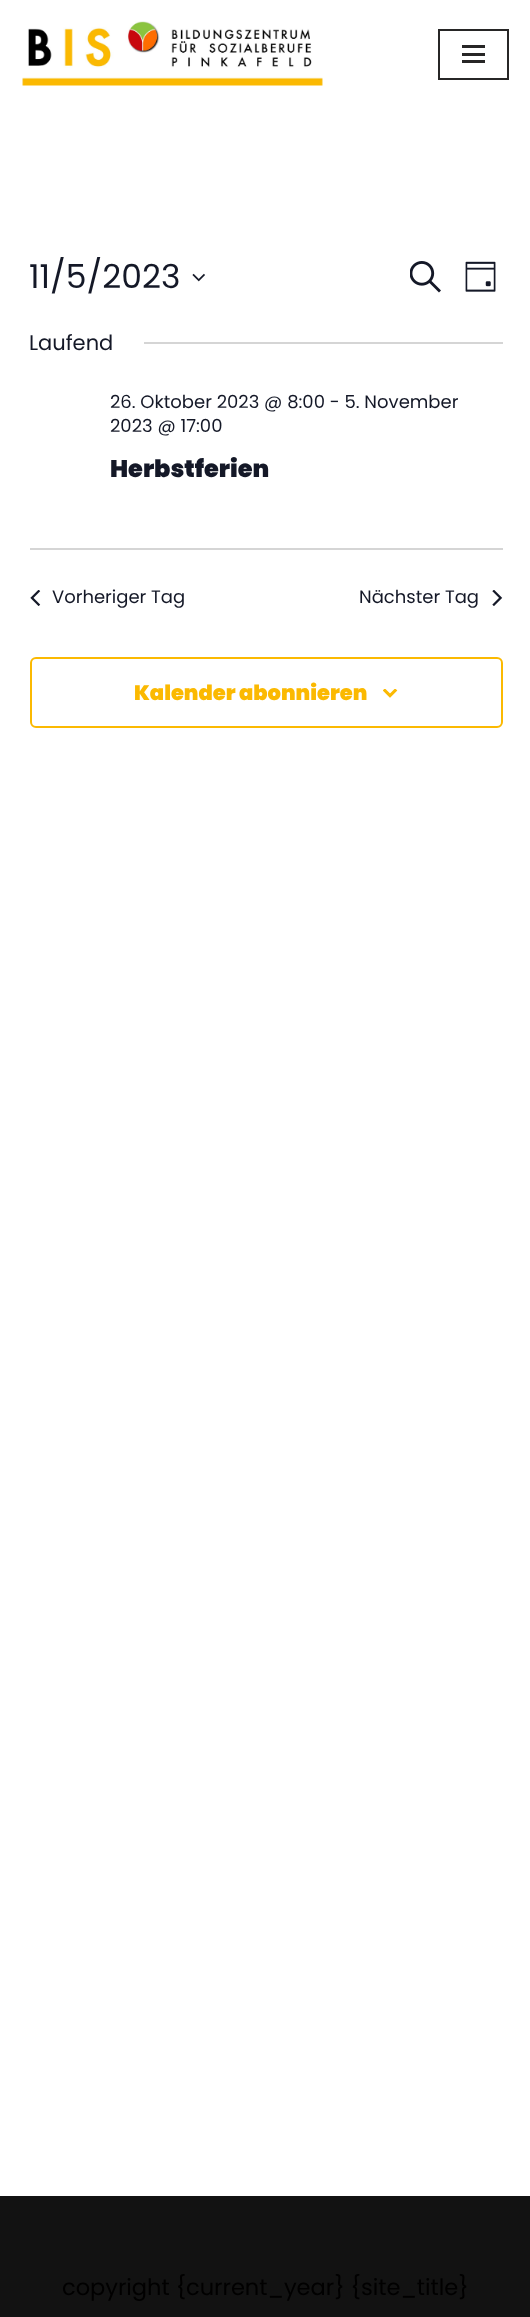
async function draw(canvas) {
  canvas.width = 530;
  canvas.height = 2317;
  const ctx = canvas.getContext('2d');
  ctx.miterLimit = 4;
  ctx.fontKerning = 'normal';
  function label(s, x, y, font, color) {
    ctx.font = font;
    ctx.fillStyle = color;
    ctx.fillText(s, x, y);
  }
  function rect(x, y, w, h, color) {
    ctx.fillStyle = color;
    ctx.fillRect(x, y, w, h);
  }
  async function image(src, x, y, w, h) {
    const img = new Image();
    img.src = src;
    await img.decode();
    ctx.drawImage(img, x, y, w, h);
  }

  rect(0, 0, 530, 2317, '#fff');
  await image('assets/img1.png', 22, 21, 301, 65);
  ctx.strokeStyle = '#272626';
  ctx.lineWidth = 2;
  ctx.strokeRect(439, 30, 69, 49);
  rect(462, 45, 23, 3, '#272626');
  rect(462, 53, 23, 3, '#272626');
  rect(462, 60, 23, 3, '#272626');
  label('11/5/2023', 29, 288, '33px Poppins', '#141827');
  await image('assets/img2.png', 192, 273, 13, 9);
  await image('assets/img3.png', 410, 261, 31, 32);
  await image('assets/img4.png', 465, 261, 31, 31);
  label('Laufend', 29, 350, '21px Poppins', '#141827');
  rect(144, 342, 359, 2, '#d5d5d5');
  label('26. Oktober 2023 @ 8:00 - 5. November', 110, 408, '18px Poppins', '#141827');
  label('2023 @ 17:00', 110, 432, '18px Poppins', '#141827');
  label('Herbstferien', 110, 477, '900 24px Poppins', '#141827');
  rect(30, 548, 473, 2, '#d5d5d5');
  await image('assets/img5.png', 30, 590, 11, 16);
  label('Vorheriger Tag', 52, 603, '18px Poppins', '#141827');
  label('Nächster Tag', 359, 603, '18px Poppins', '#141827');
  await image('assets/img6.png', 492, 590, 11, 16);
  ctx.beginPath();
  ctx.roundRect(31, 658, 471, 69, 5);
  ctx.strokeStyle = '#fbb901';
  ctx.stroke();
  label('Kalender abonnieren', 134, 700, '900 21px Poppins', '#fbb901');
  await image('assets/img7.png', 383, 689, 15, 9);
  rect(0, 2196, 530, 121, '#121212');
  label('copyright {current_year} {site_title}', 62, 2295, '22.5px Poppins', '#010000');
}

draw(document.querySelector('canvas'));
